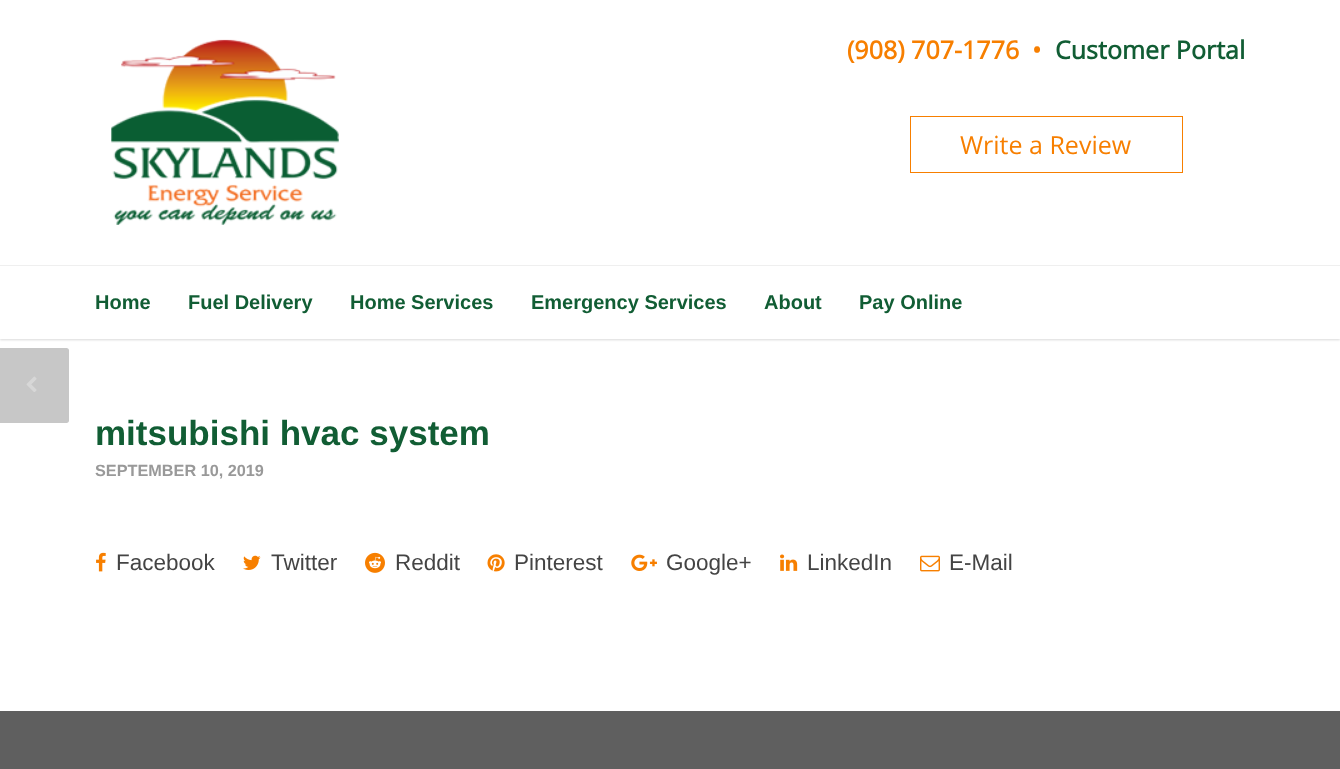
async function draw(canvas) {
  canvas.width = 1340;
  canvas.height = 769;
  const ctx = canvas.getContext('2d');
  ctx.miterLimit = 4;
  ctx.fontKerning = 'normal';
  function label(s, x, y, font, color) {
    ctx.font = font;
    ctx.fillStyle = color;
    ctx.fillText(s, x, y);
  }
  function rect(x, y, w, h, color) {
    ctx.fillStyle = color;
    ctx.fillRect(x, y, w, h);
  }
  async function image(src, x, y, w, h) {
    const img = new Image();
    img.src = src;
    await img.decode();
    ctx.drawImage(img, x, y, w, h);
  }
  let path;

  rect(0, 0, 1340, 769, '#fff');
  ctx.fillStyle = '#00000026';
  ctx.filter = 'blur(1px)';
  ctx.beginPath();
  ctx.rect(0, 1, 1340, 339);
  ctx.fill();
  ctx.filter = 'none';
  rect(0, 0, 1340, 339, '#fff');
  await image('assets/img1.png', 111, 39, 228, 186);
  label('(908) 707-1776', 847, 59, 'bold 25px Open Sans', '#f77f00');
  label('•', 1032, 59, 'bold 25px Open Sans', '#f77f00');
  label('Customer Portal', 1055, 59, 'bold 25px Open Sans', '#115d34');
  ctx.strokeStyle = '#f77f00';
  ctx.strokeRect(910.5, 116.5, 272, 56);
  label('Write a Review', 960, 154, '25px Open Sans', '#f77f00');
  rect(0, 265, 1340, 1, '#efefef');
  label('Home', 95, 309, 'bold 20px Liberation Sans', '#115d34');
  label('Fuel Delivery', 188, 309, 'bold 20px Liberation Sans', '#115d34');
  label('Home Services', 350, 309, 'bold 20px Liberation Sans', '#115d34');
  label('Emergency Services', 531, 309, 'bold 20px Liberation Sans', '#115d34');
  label('About', 764, 309, 'bold 20px Liberation Sans', '#115d34');
  label('Pay Online', 859, 309, 'bold 20px Liberation Sans', '#115d34');
  ctx.fillStyle = '#c7c7c7';
  path = new Path2D('M-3 348H66.5C68 348 69 349 69 350.5V420.5C69 422 68 423 66.5 423H-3Z');
  ctx.fill(path);
  await image('assets/img2.png', 26, 376, 11, 16);
  label('mitsubishi hvac system', 95, 445, 'bold 35px Liberation Sans', '#115d34');
  label('SEPTEMBER 10, 2019', 95, 476, 'bold 16.25px Liberation Sans', '#999');
  await image('assets/img3.png', 96, 552, 10, 20);
  label('Facebook', 116, 570, '22.5px Liberation Sans', '#444');
  await image('assets/img4.png', 243, 555, 18, 15);
  label('Twitter', 271, 570, '22.5px Liberation Sans', '#444');
  await image('assets/img5.png', 365, 552, 20, 21);
  label('Reddit', 395, 570, '22.5px Liberation Sans', '#444');
  await image('assets/img6.png', 487, 554, 18, 18);
  label('Pinterest', 514, 570, '22.5px Liberation Sans', '#444');
  await image('assets/img7.png', 631, 554, 26, 17);
  label('Google+', 666, 570, '22.5px Liberation Sans', '#444');
  await image('assets/img8.png', 780, 554, 18, 17);
  label('LinkedIn', 807, 570, '22.5px Liberation Sans', '#444');
  await image('assets/img9.png', 920, 555, 20, 17);
  label('E-Mail', 949, 570, '22.5px Liberation Sans', '#444');
  rect(0, 711, 1340, 58, '#5f5f5f');
}

draw(document.querySelector('canvas'));
